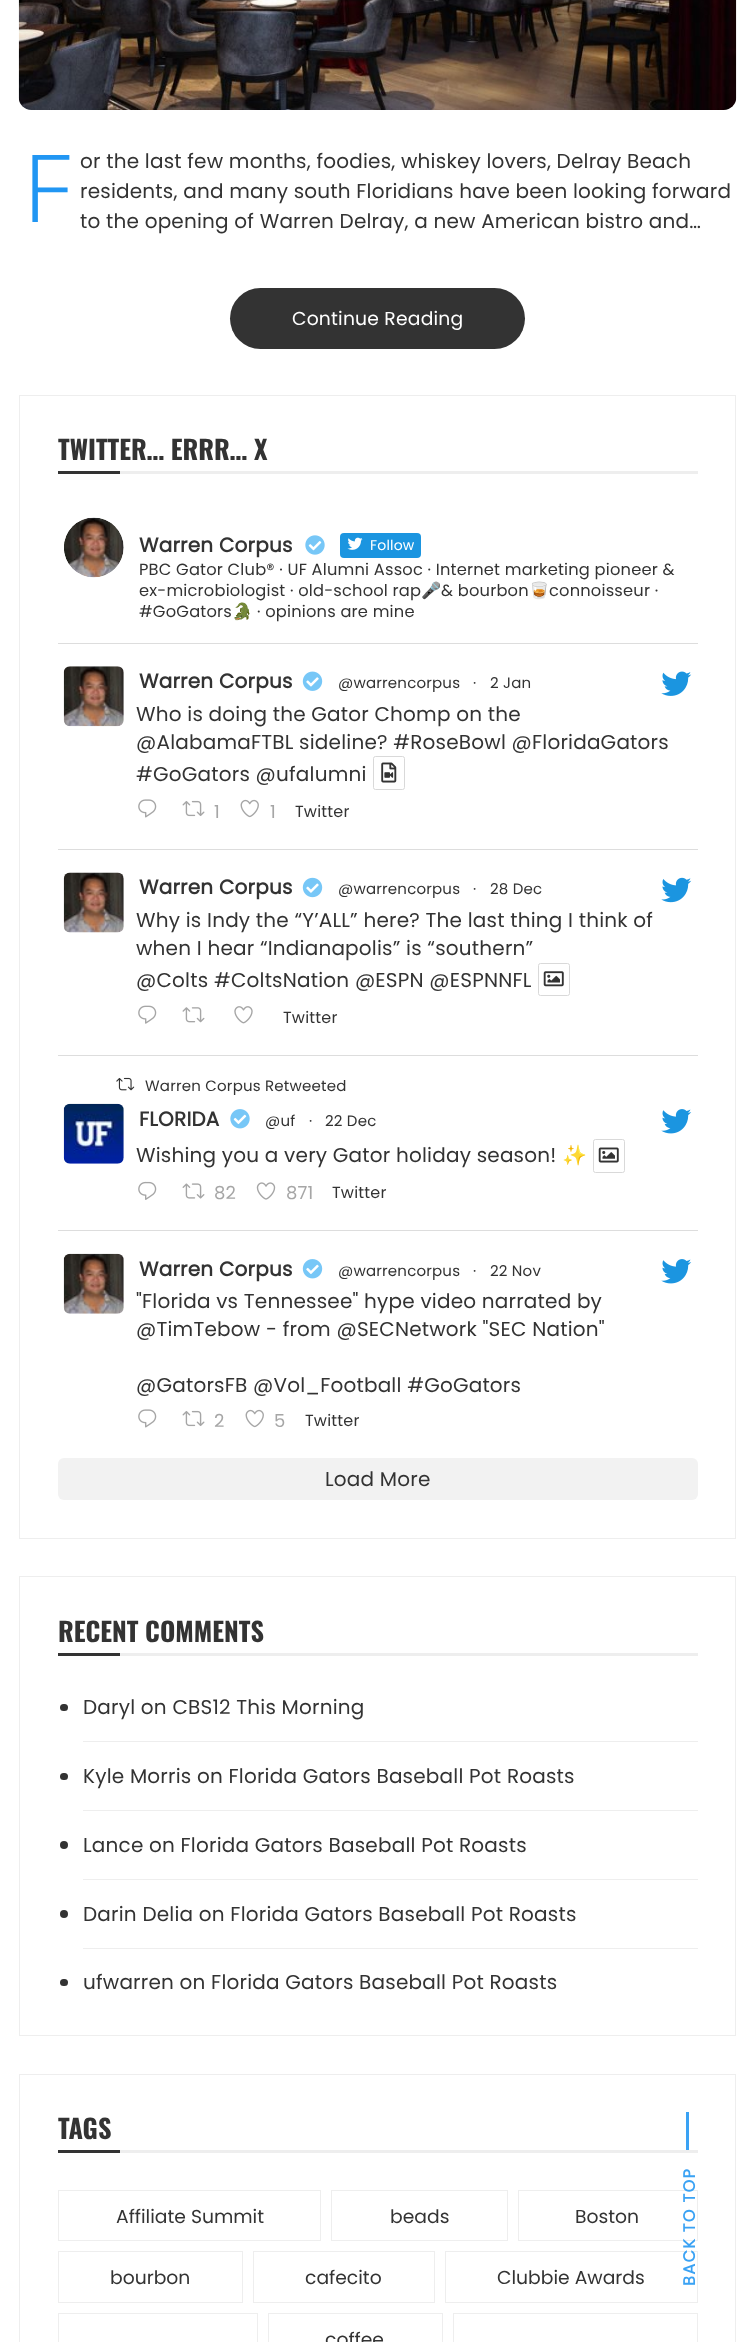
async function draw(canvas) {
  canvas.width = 754;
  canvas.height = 2342;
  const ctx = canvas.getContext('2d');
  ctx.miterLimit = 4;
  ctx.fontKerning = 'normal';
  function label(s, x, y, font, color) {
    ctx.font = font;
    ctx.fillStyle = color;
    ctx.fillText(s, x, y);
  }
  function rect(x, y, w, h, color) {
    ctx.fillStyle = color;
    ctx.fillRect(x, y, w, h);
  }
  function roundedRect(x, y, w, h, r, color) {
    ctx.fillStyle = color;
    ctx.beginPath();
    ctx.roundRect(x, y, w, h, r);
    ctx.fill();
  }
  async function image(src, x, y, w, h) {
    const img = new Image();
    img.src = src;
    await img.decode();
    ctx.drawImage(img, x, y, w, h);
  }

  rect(0, 0, 754, 2342, '#fff');
  await image('assets/img1.png', 18, 0, 719, 110);
  ctx.letterSpacing = '0.2px';
  label('F', 23, 222, '300 94px Noto Sans', '#2196f3');
  label('or the last few months, foodies, whiskey lovers, Delray Beach', 80, 168, '20px Poppins', '#333');
  label('residents, and many south Floridians have been looking forward', 80, 198, '20px Poppins', '#333');
  label('to the opening of Warren Delray, a new American bistro and…', 80, 228, '20px Poppins', '#333');
  roundedRect(230, 288, 295, 61, 30.5, '#333');
  label('Continue Reading', 292, 325, '18.75px Poppins', '#fff');
  ctx.strokeStyle = '#eee';
  ctx.strokeRect(19.5, 395.5, 716, 1143);
  rect(120, 471, 578, 3, '#eee');
  ctx.letterSpacing = '0px';
  label('TWITTER… ERRR… X', 58, 460, 'bold 26.25px Oswald', '#333');
  rect(58, 471, 62, 3, '#333');
  rect(58, 643, 640, 1, '#ddd');
  await image('assets/img2.png', 64, 517, 60, 61);
  ctx.letterSpacing = '0.2px';
  label('Warren Corpus', 139, 552, 'bold 20px Poppins', '#333');
  await image('assets/img3.png', 305, 535, 20, 20);
  roundedRect(340, 533, 81, 25, 4, '#1b95e0');
  await image('assets/img4.png', 347, 537, 16, 13);
  label('Follow', 370, 550, '14px Poppins', '#fff');
  label('PBC Gator Club® · UF Alumni Assoc · Internet marketing pioneer &', 139, 575, '16.25px Poppins', '#333');
  label('ex-microbiologist · old-school rap', 139, 596, '16.25px Poppins', '#333');
  label('🎤', 421, 596, '16.25px Noto Color Emoji', '#333');
  label('& bourbon', 441, 596, '16.25px Poppins', '#333');
  label('🥃', 529, 596, '16.25px Noto Color Emoji', '#333');
  label('connoisseur ·', 549, 596, '16.25px Poppins', '#333');
  label('#GoGators', 139, 617, '16.25px Poppins', '#333');
  label('🐊', 232, 617, '16.25px Noto Color Emoji', '#333');
  label('· opinions are mine', 257, 617, '16.25px Poppins', '#333');
  rect(58, 849, 640, 1, '#ddd');
  await image('assets/img5.png', 63, 666, 61, 61);
  label('Warren Corpus', 139, 688, 'bold 20px Poppins', '#333');
  await image('assets/img6.png', 302, 671, 21, 20);
  label('@warrencorpus', 338, 688, '15px Poppins', '#333');
  label('·', 473, 688, '15px Poppins', '#333');
  label('2 Jan', 490, 688, '15px Poppins', '#333');
  await image('assets/img7.png', 661, 671, 31, 25);
  label('Who is doing the Gator Chomp on the', 136, 721, '20px Poppins', '#333');
  label('@AlabamaFTBL sideline? #RoseBowl @FloridaGators', 136, 749, '20px Poppins', '#333');
  label('#GoGators @ufalumni', 136, 781, '20px Poppins', '#333');
  ctx.beginPath();
  ctx.roundRect(373.5, 756.5, 31, 33, 2);
  ctx.strokeStyle = '#d9d9d9';
  ctx.stroke();
  await image('assets/img8.png', 381, 762, 16, 21);
  await image('assets/img9.png', 138, 799, 19, 19);
  await image('assets/img10.png', 182, 800, 23, 17);
  label('1', 214, 818, '18px Poppins', '#a6a6a6');
  await image('assets/img11.png', 240, 799, 19, 19);
  label('1', 270, 818, '18px Poppins', '#a6a6a6');
  label('Twitter', 295, 817, '16px Poppins', '#333');
  rect(58, 1055, 640, 1, '#ddd');
  await image('assets/img12.png', 63, 872, 61, 61);
  label('Warren Corpus', 139, 894, 'bold 20px Poppins', '#333');
  await image('assets/img13.png', 302, 877, 21, 21);
  label('@warrencorpus', 338, 894, '15px Poppins', '#333');
  label('·', 473, 894, '15px Poppins', '#333');
  label('28 Dec', 490, 894, '15px Poppins', '#333');
  await image('assets/img14.png', 661, 877, 31, 26);
  label('Why is Indy the “Y’ALL” here? The last thing I think of', 136, 927, '20px Poppins', '#333');
  label('when I hear “Indianapolis” is “southern”', 136, 955, '20px Poppins', '#333');
  label('@Colts #ColtsNation @ESPN @ESPNNFL', 136, 987, '20px Poppins', '#333');
  ctx.beginPath();
  ctx.roundRect(538.5, 963.5, 31, 32, 2);
  ctx.stroke();
  await image('assets/img15.png', 543, 971, 21, 16);
  await image('assets/img16.png', 138, 1005, 19, 19);
  await image('assets/img17.png', 182, 1007, 23, 16);
  await image('assets/img18.png', 234, 1006, 19, 18);
  label('Twitter', 283, 1023, '16px Poppins', '#333');
  rect(58, 1230, 640, 1, '#ddd');
  await image('assets/img19.png', 116, 1077, 19, 14);
  label('Warren Corpus Retweeted', 145, 1091, '15px Poppins', '#333');
  await image('assets/img20.png', 63, 1103, 61, 61);
  label('FLORIDA', 139, 1126, 'bold 20px Poppins', '#333');
  await image('assets/img21.png', 230, 1109, 20, 20);
  label('@uf', 265, 1126, '15px Poppins', '#333');
  label('·', 309, 1126, '15px Poppins', '#333');
  label('22 Dec', 325, 1126, '15px Poppins', '#333');
  await image('assets/img22.png', 661, 1109, 31, 25);
  label('Wishing you a very Gator holiday season!', 136, 1162, '20px Poppins', '#333');
  label('✨', 562, 1162, '20px Noto Color Emoji', '#333');
  ctx.beginPath();
  ctx.roundRect(593.5, 1139.5, 31, 33, 2);
  ctx.stroke();
  await image('assets/img23.png', 598, 1147, 21, 16);
  await image('assets/img24.png', 138, 1181, 19, 19);
  await image('assets/img25.png', 182, 1183, 23, 16);
  label('82', 214, 1199, '18px Poppins', '#a6a6a6');
  await image('assets/img26.png', 256, 1182, 20, 18);
  label('871', 286, 1199, '18px Poppins', '#a6a6a6');
  label('Twitter', 332, 1198, '16px Poppins', '#333');
  await image('assets/img27.png', 63, 1253, 61, 61);
  label('Warren Corpus', 139, 1276, 'bold 20px Poppins', '#333');
  await image('assets/img28.png', 302, 1259, 21, 20);
  label('@warrencorpus', 338, 1276, '15px Poppins', '#333');
  label('·', 473, 1276, '15px Poppins', '#333');
  label('22 Nov', 490, 1276, '15px Poppins', '#333');
  await image('assets/img22.png', 661, 1259, 31, 25);
  label('"Florida vs Tennessee" hype video narrated by', 136, 1308, '20px Poppins', '#333');
  label('@TimTebow - from @SECNetwork "SEC Nation"', 136, 1336, '20px Poppins', '#333');
  label('@GatorsFB @Vol_Football #GoGators', 136, 1392, '20px Poppins', '#333');
  await image('assets/img9.png', 138, 1409, 19, 19);
  await image('assets/img10.png', 182, 1410, 23, 17);
  label('2', 214, 1427, '18px Poppins', '#a6a6a6');
  await image('assets/img11.png', 245, 1409, 19, 19);
  label('5', 274, 1427, '18px Poppins', '#a6a6a6');
  label('Twitter', 305, 1426, '16px Poppins', '#333');
  roundedRect(58, 1458, 640, 42, 6, '#f2f2f2');
  label('Load More', 325, 1486, '20px Poppins', '#333');
  ctx.strokeStyle = '#eee';
  ctx.strokeRect(19.5, 1576.5, 716, 459);
  rect(120, 1653, 578, 3, '#eee');
  ctx.letterSpacing = '0px';
  label('RECENT COMMENTS', 58, 1642, 'bold 26.25px Oswald', '#333');
  rect(58, 1653, 62, 3, '#333');
  rect(83, 1741, 615, 1, '#eee');
  roundedRect(60, 1704, 8, 7, 3.5, '#333');
  ctx.letterSpacing = '0.2px';
  label('Daryl on CBS12 This Morning', 83, 1714, '20px Poppins', '#333');
  rect(83, 1810, 615, 1, '#eee');
  roundedRect(60, 1773, 8, 7, 3.5, '#333');
  label('Kyle Morris on Florida Gators Baseball Pot Roasts', 83, 1783, '20px Poppins', '#333');
  rect(83, 1879, 615, 1, '#eee');
  ctx.fillStyle = '#333';
  ctx.beginPath();
  ctx.arc(64, 1845, 4, 0, 2 * Math.PI);
  ctx.fill();
  label('Lance on Florida Gators Baseball Pot Roasts', 83, 1852, '20px Poppins', '#333');
  rect(83, 1948, 615, 1, '#eee');
  ctx.fillStyle = '#333';
  ctx.beginPath();
  ctx.arc(64, 1914, 4, 0, 2 * Math.PI);
  ctx.fill();
  label('Darin Delia on Florida Gators Baseball Pot Roasts', 83, 1921, '20px Poppins', '#333');
  roundedRect(60, 1979, 8, 7, 3.5, '#333');
  label('ufwarren on Florida Gators Baseball Pot Roasts', 83, 1989, '20px Poppins', '#333');
  ctx.strokeRect(19.5, 2074.5, 716, 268);
  rect(120, 2150, 578, 3, '#eee');
  ctx.letterSpacing = '0px';
  label('TAGS', 58, 2139, 'bold 26.25px Oswald', '#333');
  rect(58, 2150, 62, 3, '#333');
  ctx.strokeRect(58.5, 2190.5, 262, 50);
  label('Affiliate Summit', 116, 2223, '18.75px Poppins', '#333');
  ctx.strokeRect(331.5, 2190.5, 176, 50);
  label('beads', 390, 2223, '18.75px Poppins', '#333');
  ctx.strokeRect(518.5, 2190.5, 179, 50);
  label('Boston', 575, 2223, '18.75px Poppins', '#333');
  ctx.strokeRect(58.5, 2251.5, 184, 51);
  label('bourbon', 110, 2284, '18.75px Poppins', '#333');
  ctx.strokeRect(253.5, 2251.5, 181, 51);
  label('cafecito', 305, 2284, '18.75px Poppins', '#333');
  ctx.strokeRect(445.5, 2251.5, 252, 51);
  label('Clubbie Awards', 497, 2284, '18.75px Poppins', '#333');
  ctx.strokeRect(58.5, 2313.5, 199, 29);
  ctx.strokeRect(268.5, 2313.5, 174, 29);
  label('coffee', 325, 2346, '18.75px Poppins', '#333');
  ctx.strokeRect(453.5, 2313.5, 244, 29);
  rect(686, 2112, 3, 38, '#3aa2f4');
  ctx.letterSpacing = '1.25px';
  ctx.font = 'bold 16.25px Poppins';
  ctx.save();
  ctx.translate(695, 2286);
  ctx.rotate(-90 * Math.PI / 180);
  ctx.fillText('BACK TO TOP', 0, 0);
  ctx.restore();
}

draw(document.querySelector('canvas'));
